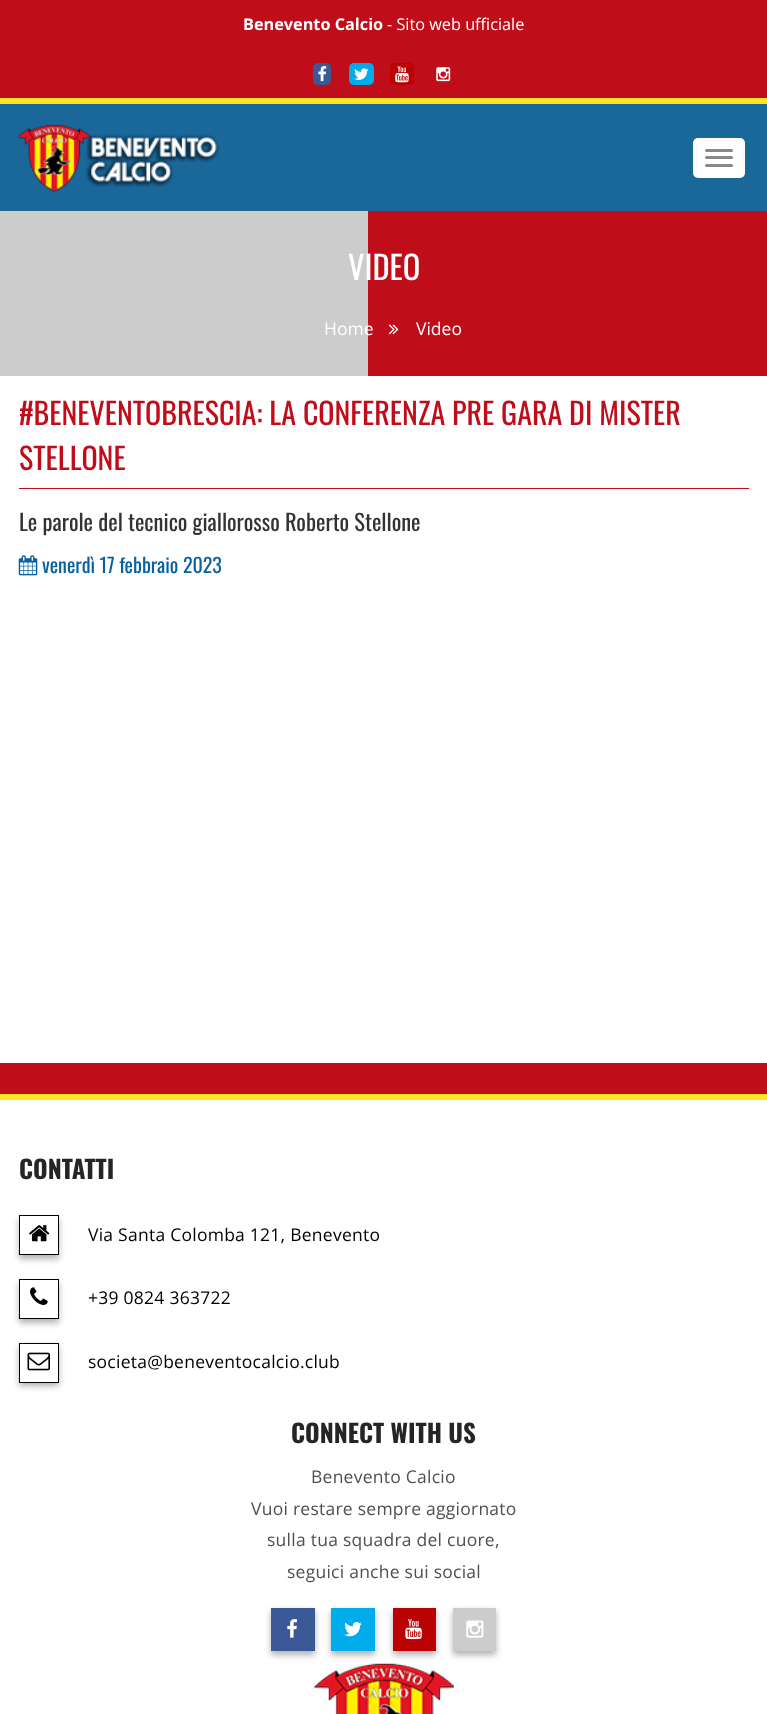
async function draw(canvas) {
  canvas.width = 767;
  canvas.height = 1714;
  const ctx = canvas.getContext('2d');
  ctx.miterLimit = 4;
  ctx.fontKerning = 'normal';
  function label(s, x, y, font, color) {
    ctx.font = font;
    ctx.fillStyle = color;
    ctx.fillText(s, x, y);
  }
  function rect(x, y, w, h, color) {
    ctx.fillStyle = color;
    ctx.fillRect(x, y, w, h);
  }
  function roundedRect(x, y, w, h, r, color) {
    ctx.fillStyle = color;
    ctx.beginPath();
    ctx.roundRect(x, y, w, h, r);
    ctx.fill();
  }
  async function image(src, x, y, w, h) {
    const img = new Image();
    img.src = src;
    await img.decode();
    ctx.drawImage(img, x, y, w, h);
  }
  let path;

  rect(0, 0, 767, 1714, '#fff');
  rect(0, 0, 767, 98, '#bf0e1a');
  rect(0, 98, 767, 6, '#ffe325');
  label('Benevento Calcio', 243, 30, 'bold 16.25px Open Sans', '#fff');
  label('- Sito web ufficiale', 387, 30, '16.25px Open Sans', '#fff');
  roundedRect(313, 63, 18, 22, 5, '#3b5997');
  await image('assets/img1.png', 318, 66, 9, 16);
  roundedRect(349, 63, 25, 22, 5, '#00aceb');
  await image('assets/img2.png', 354, 68, 15, 12);
  roundedRect(390, 63, 24, 22, 5, '#ba0204');
  await image('assets/img3.png', 395, 66, 14, 17);
  await image('assets/img4.png', 436, 67, 15, 15);
  rect(0, 104, 767, 107, '#1a679a');
  await image('assets/img5.png', 18, 124, 202, 68);
  roundedRect(693, 138, 52, 40, 5, '#fff');
  roundedRect(705, 149, 28, 3, 1.5, '#888');
  roundedRect(705, 156, 28, 3, 1.5, '#888');
  roundedRect(705, 164, 28, 3, 1.5, '#888');
  rect(0, 211, 368, 165, '#ccc');
  rect(368, 211, 399, 165, '#bf0e1a');
  label('VIDEO', 348, 280, '32.5px Oswald', '#fff');
  label('Home', 324, 335, '17.5px Open Sans', '#fff');
  await image('assets/img6.png', 388, 324, 11, 11);
  label('Video', 416, 335, '17.5px Open Sans', '#fff');
  rect(19, 488, 730, 1, '#bf0e1a');
  label('#BENEVENTOBRESCIA: LA CONFERENZA PRE GARA DI MISTER', 19, 425, '30px Oswald', '#bf0e1a');
  label('STELLONE', 19, 470, '30px Oswald', '#bf0e1a');
  label('Le parole del tecnico giallorosso Roberto Stellone', 19, 531, '22.5px Oswald', '#333');
  await image('assets/img7.png', 18, 555, 20, 21);
  label('venerdì 17 febbraio 2023', 42, 573, '20px Oswald', '#0861a1');
  rect(0, 1063, 767, 31, '#bf0e1a');
  rect(0, 1094, 767, 6, '#ffe325');
  label('CONTATTI', 19, 1179, 'bold 25px Oswald', '#252525');
  ctx.save();
  path = new Path2D('M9 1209H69V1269H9ZM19 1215H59V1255H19Z');
  ctx.clip(path, 'evenodd');
  ctx.fillStyle = '#0000004d';
  ctx.filter = 'blur(3px)';
  ctx.beginPath();
  ctx.rect(19, 1219, 40, 40);
  ctx.fill();
  ctx.filter = 'none';
  ctx.restore();
  ctx.strokeStyle = '#000';
  ctx.strokeRect(19.5, 1215.5, 39, 39);
  await image('assets/img8.png', 29, 1225, 21, 17);
  ctx.letterSpacing = '0.25px';
  label('Via Santa Colomba 121, Benevento', 88, 1241, '17.5px Open Sans', '#000');
  ctx.save();
  path = new Path2D('M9 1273H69V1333H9ZM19 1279H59V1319H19Z');
  ctx.clip(path, 'evenodd');
  ctx.fillStyle = '#0000004d';
  ctx.filter = 'blur(3px)';
  ctx.beginPath();
  ctx.rect(19, 1283, 40, 40);
  ctx.fill();
  ctx.filter = 'none';
  ctx.restore();
  ctx.strokeRect(19.5, 1279.5, 39, 39);
  await image('assets/img9.png', 30, 1287, 18, 18);
  label('+39 0824 363722', 88, 1304, '17.5px Open Sans', '#000');
  ctx.save();
  path = new Path2D('M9 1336H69V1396H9ZM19 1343H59V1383H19Z');
  ctx.clip(path, 'evenodd');
  ctx.fillStyle = '#0000004d';
  ctx.filter = 'blur(3px)';
  ctx.beginPath();
  ctx.rect(19, 1346, 40, 40);
  ctx.fill();
  ctx.filter = 'none';
  ctx.restore();
  ctx.strokeRect(19.5, 1343.5, 39, 39);
  await image('assets/img10.png', 27, 1352, 23, 19);
  label('societa@beneventocalcio.club', 88, 1368, '17.5px Open Sans', '#000');
  ctx.letterSpacing = '0px';
  label('CONNECT WITH US', 291, 1443, 'bold 25px Oswald', '#252525');
  ctx.letterSpacing = '0.25px';
  label('Benevento Calcio', 311, 1483, '17.5px Open Sans', '#505050');
  label('Vuoi restare sempre aggiornato', 251, 1515, '17.5px Open Sans', '#505050');
  label('sulla tua squadra del cuore,', 267, 1546, '17.5px Open Sans', '#505050');
  label('seguici anche sui social', 287, 1578, '17.5px Open Sans', '#505050');
  await image('assets/img15.png', 313, 1663, 141, 51);
  ctx.fillStyle = '#0000004d';
  ctx.filter = 'blur(3px)';
  ctx.beginPath();
  ctx.rect(271, 1611, 44, 44);
  ctx.fill();
  ctx.filter = 'none';
  rect(271, 1608, 44, 43, '#3b5997');
  await image('assets/img11.png', 287, 1619, 10, 19);
  ctx.fillStyle = '#0000004d';
  ctx.filter = 'blur(3px)';
  ctx.beginPath();
  ctx.rect(331, 1611, 44, 44);
  ctx.fill();
  ctx.filter = 'none';
  rect(331, 1608, 44, 43, '#00aceb');
  await image('assets/img12.png', 344, 1622, 18, 15);
  ctx.fillStyle = '#0000004d';
  ctx.filter = 'blur(3px)';
  ctx.beginPath();
  ctx.rect(393, 1611, 43, 44);
  ctx.fill();
  ctx.filter = 'none';
  rect(393, 1608, 43, 43, '#ba0204');
  await image('assets/img13.png', 405, 1619, 17, 21);
  ctx.fillStyle = '#0000004d';
  ctx.filter = 'blur(3px)';
  ctx.beginPath();
  ctx.rect(453, 1611, 43, 44);
  ctx.fill();
  ctx.filter = 'none';
  rect(453, 1608, 43, 43, '#ccc');
  await image('assets/img14.png', 466, 1620, 18, 18);
}

draw(document.querySelector('canvas'));
